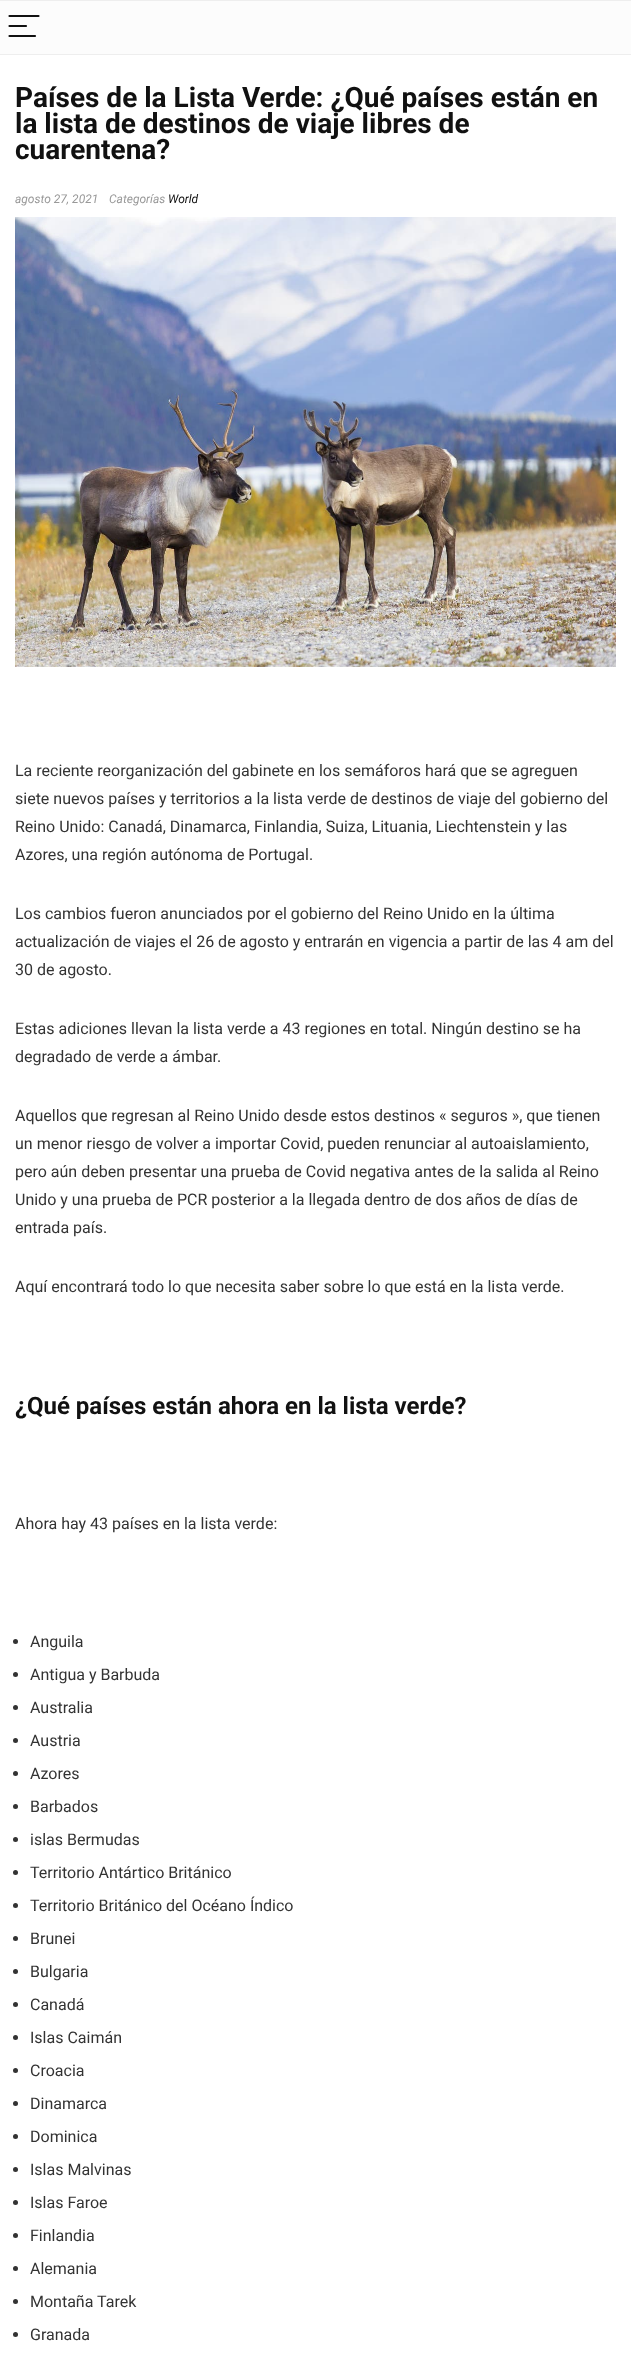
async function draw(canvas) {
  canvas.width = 631;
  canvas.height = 2358;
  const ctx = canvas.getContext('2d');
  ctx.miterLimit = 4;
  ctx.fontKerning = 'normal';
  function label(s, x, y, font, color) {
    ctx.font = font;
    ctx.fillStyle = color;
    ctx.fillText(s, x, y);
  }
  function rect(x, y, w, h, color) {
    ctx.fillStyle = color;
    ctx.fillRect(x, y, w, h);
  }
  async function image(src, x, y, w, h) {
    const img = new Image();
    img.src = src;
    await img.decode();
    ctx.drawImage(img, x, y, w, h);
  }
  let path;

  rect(0, 0, 631, 2358, '#fff');
  rect(0, 1, 631, 53, '#fcfcfc');
  rect(0, 0, 631, 1, '#eee');
  rect(0, 54, 631, 1, '#eee');
  path = new Path2D('M9.5 16H38.5M9.5 26H26M9.5 36H35');
  ctx.strokeStyle = '#111';
  ctx.lineWidth = 2.2;
  ctx.lineCap = 'round';
  ctx.stroke(path);
  label('Países de la Lista Verde: ¿Qué países están en', 15, 107, 'bold 28px Roboto', '#111');
  label('la lista de destinos de viaje libres de', 15, 133, 'bold 28px Roboto', '#111');
  label('cuarentena?', 15, 159, 'bold 28px Roboto', '#111');
  label('agosto 27, 2021', 15, 203, 'italic 12px Roboto', '#999');
  label('Categorías', 109, 203, 'italic 12px Roboto', '#999');
  label('World', 168, 203, 'italic 12px Roboto', '#111');
  await image('assets/img1.png', 15, 217, 601, 450);
  label('La reciente reorganización del gabinete en los semáforos hará que se agreguen', 15, 776, '16px Roboto', '#333');
  label('siete nuevos países y territorios a la lista verde de destinos de viaje del gobierno del', 15, 804, '16px Roboto', '#333');
  label('Reino Unido: Canadá, Dinamarca, Finlandia, Suiza, Lituania, Liechtenstein y las', 15, 832, '16px Roboto', '#333');
  label('Azores, una región autónoma de Portugal.', 15, 860, '16px Roboto', '#333');
  label('Los cambios fueron anunciados por el gobierno del Reino Unido en la última', 15, 919, '16px Roboto', '#333');
  label('actualización de viajes el 26 de agosto y entrarán en vigencia a partir de las 4 am del', 15, 947, '16px Roboto', '#333');
  label('30 de agosto.', 15, 975, '16px Roboto', '#333');
  label('Estas adiciones llevan la lista verde a 43 regiones en total. Ningún destino se ha', 15, 1034, '16px Roboto', '#333');
  label('degradado de verde a ámbar.', 15, 1062, '16px Roboto', '#333');
  label('Aquellos que regresan al Reino Unido desde estos destinos « seguros », que tienen', 15, 1121, '16px Roboto', '#333');
  label('un menor riesgo de volver a importar Covid, pueden renunciar al autoaislamiento,', 15, 1149, '16px Roboto', '#333');
  label('pero aún deben presentar una prueba de Covid negativa antes de la salida al Reino', 15, 1177, '16px Roboto', '#333');
  label('Unido y una prueba de PCR posterior a la llegada dentro de dos años de días de', 15, 1205, '16px Roboto', '#333');
  label('entrada país.', 15, 1233, '16px Roboto', '#333');
  label('Aquí encontrará todo lo que necesita saber sobre lo que está en la lista verde.', 15, 1292, '16px Roboto', '#333');
  label('¿Qué países están ahora en la lista verde?', 15, 1414, 'bold 24px Roboto', '#111');
  label('Ahora hay 43 países en la lista verde:', 15, 1529, '16px Roboto', '#333');
  ctx.beginPath();
  ctx.arc(15.5, 1641.5, 2.5, 0, 2 * Math.PI);
  ctx.fill();
  label('Anguila', 30, 1647, '16px Roboto', '#333');
  ctx.beginPath();
  ctx.arc(15.5, 1674.5, 2.5, 0, 2 * Math.PI);
  ctx.fill();
  label('Antigua y Barbuda', 30, 1680, '16px Roboto', '#333');
  ctx.beginPath();
  ctx.arc(15.5, 1707.5, 2.5, 0, 2 * Math.PI);
  ctx.fill();
  label('Australia', 30, 1713, '16px Roboto', '#333');
  ctx.beginPath();
  ctx.arc(15.5, 1740.5, 2.5, 0, 2 * Math.PI);
  ctx.fill();
  label('Austria', 30, 1746, '16px Roboto', '#333');
  ctx.beginPath();
  ctx.arc(15.5, 1773.5, 2.5, 0, 2 * Math.PI);
  ctx.fill();
  label('Azores', 30, 1779, '16px Roboto', '#333');
  ctx.beginPath();
  ctx.arc(15.5, 1806.5, 2.5, 0, 2 * Math.PI);
  ctx.fill();
  label('Barbados', 30, 1812, '16px Roboto', '#333');
  ctx.beginPath();
  ctx.arc(15.5, 1839.5, 2.5, 0, 2 * Math.PI);
  ctx.fill();
  label('islas Bermudas', 30, 1845, '16px Roboto', '#333');
  ctx.beginPath();
  ctx.arc(15.5, 1872.5, 2.5, 0, 2 * Math.PI);
  ctx.fill();
  label('Territorio Antártico Británico', 30, 1878, '16px Roboto', '#333');
  ctx.beginPath();
  ctx.arc(15.5, 1905.5, 2.5, 0, 2 * Math.PI);
  ctx.fill();
  label('Territorio Británico del Océano Índico', 30, 1911, '16px Roboto', '#333');
  ctx.beginPath();
  ctx.arc(15.5, 1938.5, 2.5, 0, 2 * Math.PI);
  ctx.fill();
  label('Brunei', 30, 1944, '16px Roboto', '#333');
  ctx.beginPath();
  ctx.arc(15.5, 1971.5, 2.5, 0, 2 * Math.PI);
  ctx.fill();
  label('Bulgaria', 30, 1977, '16px Roboto', '#333');
  ctx.beginPath();
  ctx.arc(15.5, 2004.5, 2.5, 0, 2 * Math.PI);
  ctx.fill();
  label('Canadá', 30, 2010, '16px Roboto', '#333');
  ctx.beginPath();
  ctx.arc(15.5, 2037.5, 2.5, 0, 2 * Math.PI);
  ctx.fill();
  label('Islas Caimán', 30, 2043, '16px Roboto', '#333');
  ctx.beginPath();
  ctx.arc(15.5, 2070.5, 2.5, 0, 2 * Math.PI);
  ctx.fill();
  label('Croacia', 30, 2076, '16px Roboto', '#333');
  ctx.beginPath();
  ctx.arc(15.5, 2103.5, 2.5, 0, 2 * Math.PI);
  ctx.fill();
  label('Dinamarca', 30, 2109, '16px Roboto', '#333');
  ctx.beginPath();
  ctx.arc(15.5, 2136.5, 2.5, 0, 2 * Math.PI);
  ctx.fill();
  label('Dominica', 30, 2142, '16px Roboto', '#333');
  ctx.beginPath();
  ctx.arc(15.5, 2169.5, 2.5, 0, 2 * Math.PI);
  ctx.fill();
  label('Islas Malvinas', 30, 2175, '16px Roboto', '#333');
  ctx.beginPath();
  ctx.arc(15.5, 2202.5, 2.5, 0, 2 * Math.PI);
  ctx.fill();
  label('Islas Faroe', 30, 2208, '16px Roboto', '#333');
  ctx.beginPath();
  ctx.arc(15.5, 2235.5, 2.5, 0, 2 * Math.PI);
  ctx.fill();
  label('Finlandia', 30, 2241, '16px Roboto', '#333');
  ctx.beginPath();
  ctx.arc(15.5, 2268.5, 2.5, 0, 2 * Math.PI);
  ctx.fill();
  label('Alemania', 30, 2274, '16px Roboto', '#333');
  ctx.beginPath();
  ctx.arc(15.5, 2301.5, 2.5, 0, 2 * Math.PI);
  ctx.fill();
  label('Montaña Tarek', 30, 2307, '16px Roboto', '#333');
  ctx.beginPath();
  ctx.arc(15.5, 2334.5, 2.5, 0, 2 * Math.PI);
  ctx.fill();
  label('Granada', 30, 2340, '16px Roboto', '#333');
}

draw(document.querySelector('canvas'));
